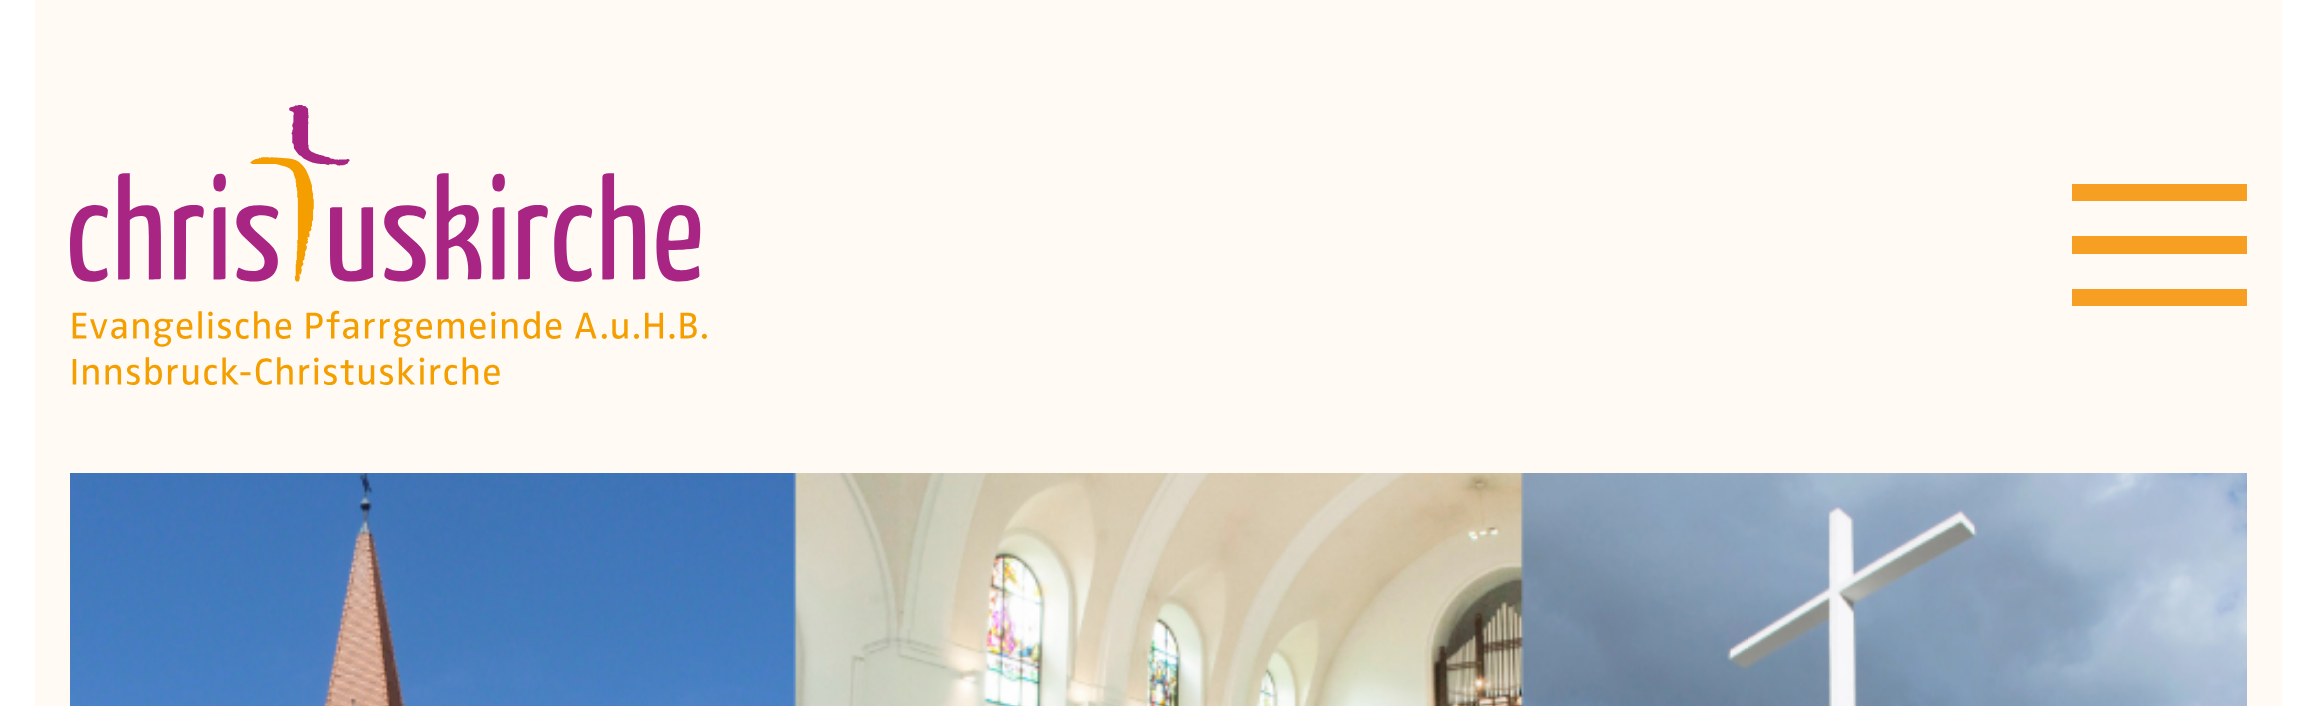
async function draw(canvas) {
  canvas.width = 2315;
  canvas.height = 706;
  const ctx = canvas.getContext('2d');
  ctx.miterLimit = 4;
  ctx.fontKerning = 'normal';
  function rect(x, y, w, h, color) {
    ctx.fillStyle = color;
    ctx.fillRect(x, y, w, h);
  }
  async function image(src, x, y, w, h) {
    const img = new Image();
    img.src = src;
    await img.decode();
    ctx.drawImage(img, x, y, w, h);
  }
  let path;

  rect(0, 0, 2315, 706, '#fff');
  rect(35, 0, 2247, 706, '#fffaf4');
  await image('assets/img1.png', 70, 105, 637, 280);
  ctx.fillStyle = '#f79f22';
  path = new Path2D('M2072 184V201H2247V184ZM2072 236V254H2247V236ZM2072 289V306H2247V289Z');
  ctx.fill(path);
  await image('assets/img2.png', 70, 473, 2177, 233);
}

draw(document.querySelector('canvas'));
